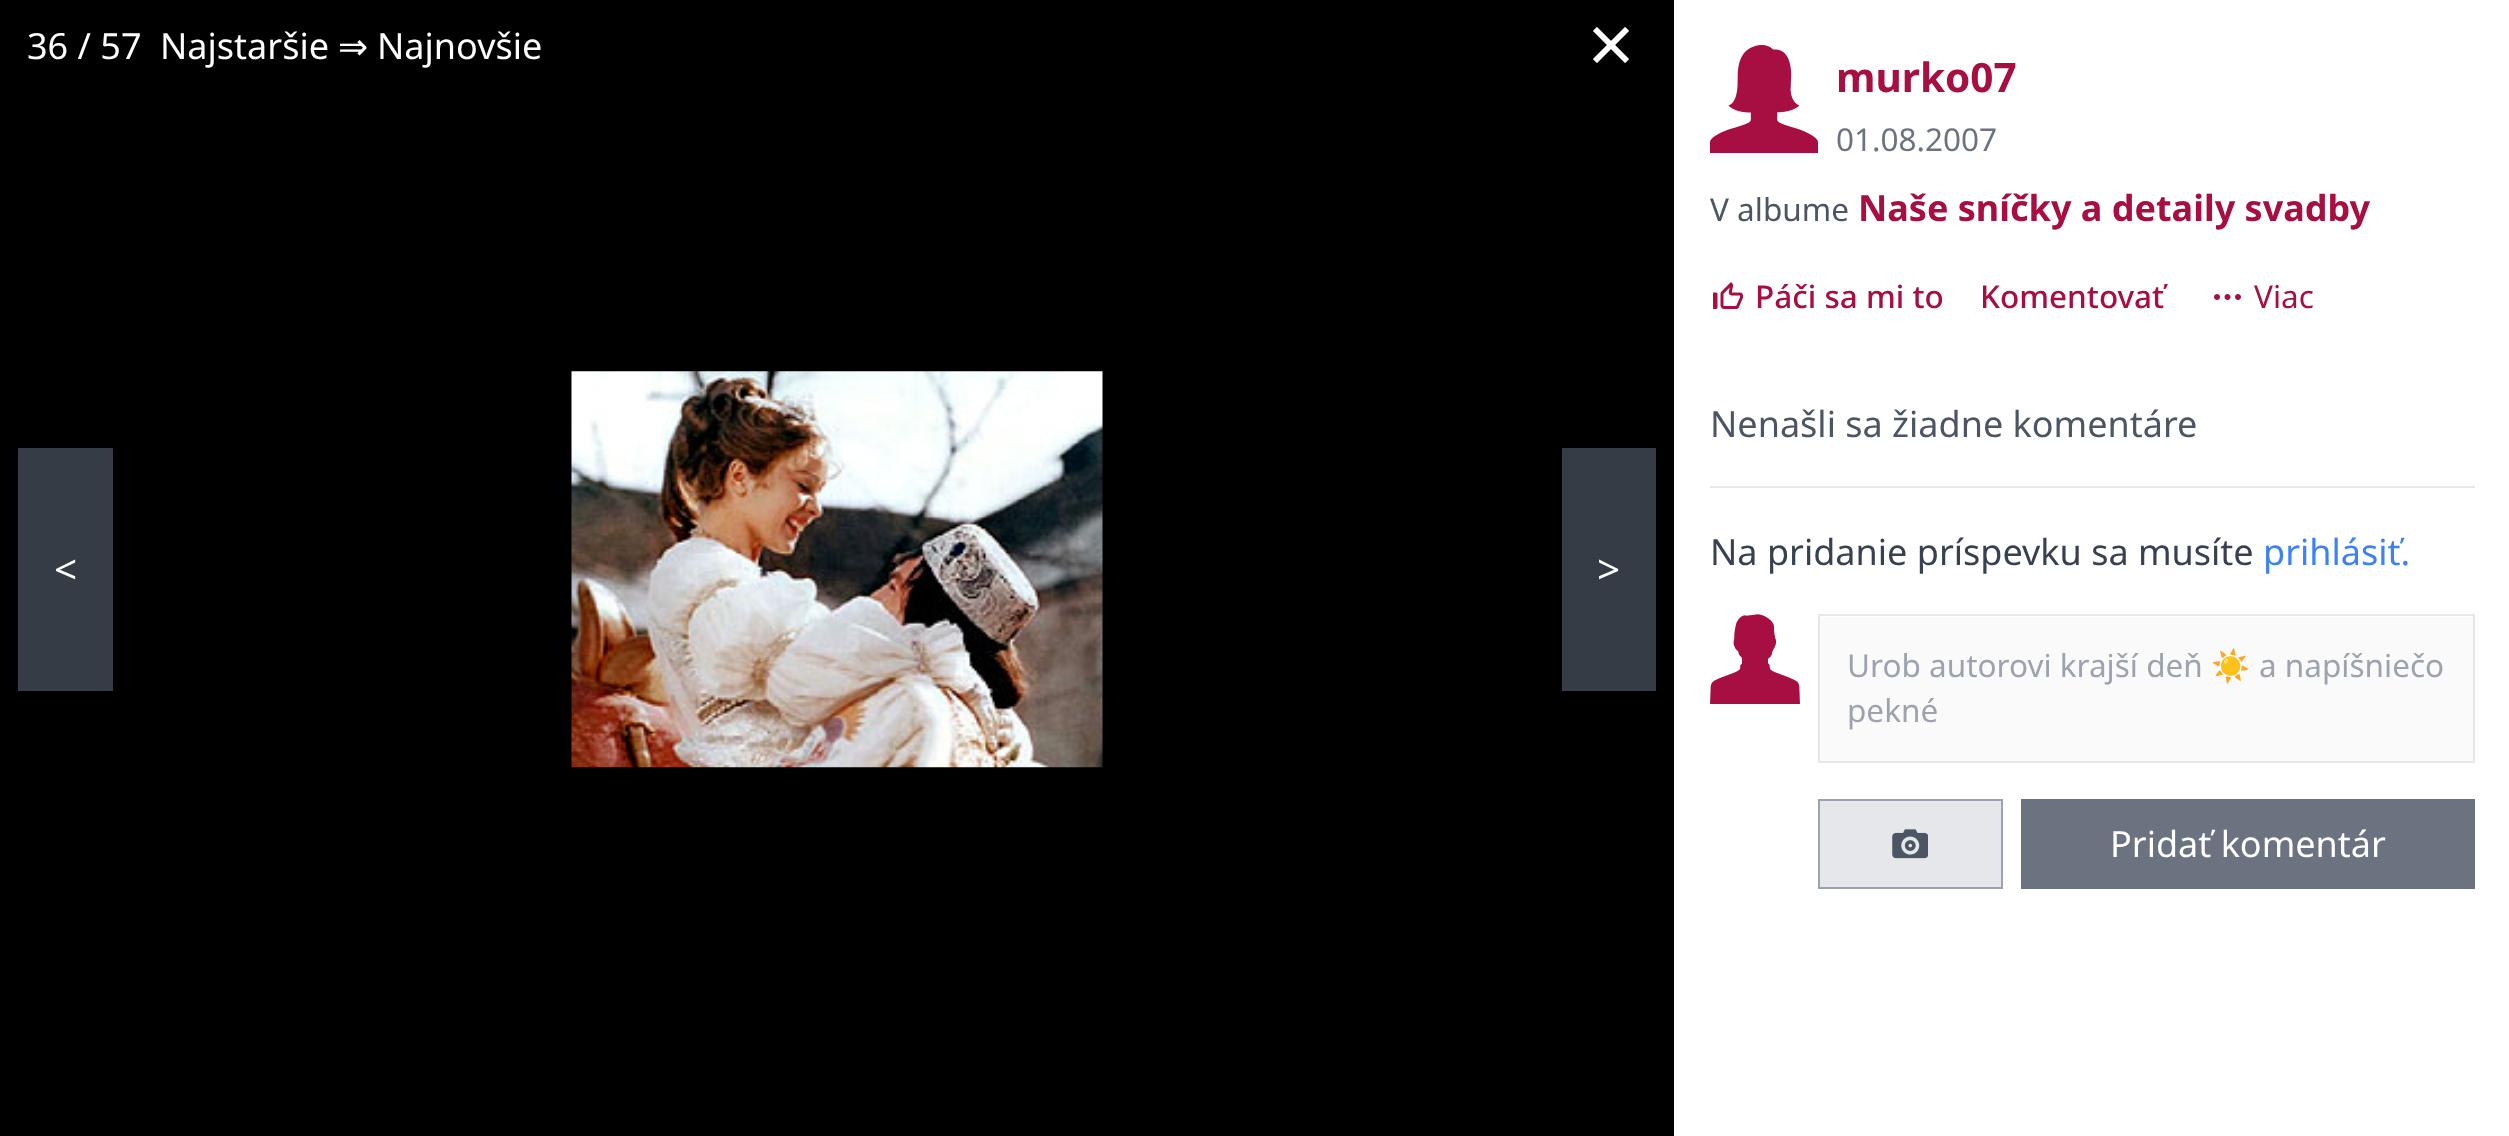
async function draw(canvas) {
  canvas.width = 2509;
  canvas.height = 1136;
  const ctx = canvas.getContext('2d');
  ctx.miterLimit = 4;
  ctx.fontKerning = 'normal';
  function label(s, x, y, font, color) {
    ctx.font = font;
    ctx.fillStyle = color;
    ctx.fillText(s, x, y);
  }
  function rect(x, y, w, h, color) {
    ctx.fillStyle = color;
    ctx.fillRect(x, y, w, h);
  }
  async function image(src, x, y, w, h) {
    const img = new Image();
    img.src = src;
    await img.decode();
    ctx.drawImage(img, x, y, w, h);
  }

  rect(0, 0, 2509, 1136, '#fff');
  rect(0, 0, 1674, 1136, '#000');
  label('36 / 57', 27, 59, '36px Noto Sans', '#fff');
  label('Najstaršie', 160, 59, '36px Noto Sans', '#fff');
  label('⇒', 338, 59, '36px DejaVu Sans', '#fff');
  label('Najnovšie', 377, 59, '36px Noto Sans', '#fff');
  await image('assets/img1.png', 1593, 27, 36, 36);
  rect(18, 448, 95, 243, '#353c45');
  label('<', 54, 584, '40.5px Noto Sans', '#fff');
  await image('assets/img2.png', 571, 371, 532, 397);
  rect(1562, 448, 94, 243, '#353c45');
  label('>', 1597, 584, '40.5px Noto Sans', '#fff');
  await image('assets/img3.png', 1710, 45, 108, 108);
  label('murko07', 1836, 92, 'bold 40.5px Noto Sans', '#a70f43');
  label('01.08.2007', 1836, 151, '31.5px Noto Sans', '#6b7280');
  label('V albume', 1710, 221, '31.5px Noto Sans', '#4b5563');
  label('Naše sníčky a detaily svadby', 1858, 221, 'bold 36px Noto Sans', '#a70f43');
  await image('assets/img4.png', 1713, 282, 30, 27);
  label('Páči sa mi to', 1755, 308, '500 31.5px Noto Sans', '#a70f43');
  label('Komentovať', 1980, 308, '500 31.5px Noto Sans', '#a70f43');
  await image('assets/img5.png', 2214, 294, 27, 6);
  label('Viac', 2254, 308, '31.5px Noto Sans', '#a70f43');
  label('Nenašli sa žiadne komentáre', 1710, 437, '36px Noto Sans', '#4b5563');
  rect(1710, 486, 765, 2, '#e5e7eb');
  label('Na pridanie príspevku sa musíte', 1710, 565, '36px Noto Sans', '#374151');
  label('prihlásiť.', 2263, 565, '36px Noto Sans', '#3b82f6');
  await image('assets/img6.png', 1710, 614, 90, 90);
  ctx.strokeStyle = '#e5e7eb';
  ctx.lineWidth = 2;
  ctx.strokeRect(1819, 615, 655, 147);
  rect(1820, 617, 653, 144, '#fafafa');
  label('Urob autorovi krajší deň', 1847, 677, '31.5px Noto Sans', '#9ca3af');
  label('☀️', 2211, 677, '31.5px Noto Color Emoji', '#9ca3af');
  label('a napíšniečo', 2259, 677, '31.5px Noto Sans', '#9ca3af');
  label('pekné', 1847, 722, '31.5px Noto Sans', '#9ca3af');
  ctx.fillStyle = '#e5e7eb';
  ctx.beginPath();
  ctx.rect(1819, 800, 183, 88);
  ctx.fill();
  ctx.strokeStyle = '#9ca3af';
  ctx.stroke();
  await image('assets/img7.png', 1892, 829, 36, 30);
  rect(2021, 799, 454, 90, '#6b7280');
  label('Pridať komentár', 2110, 857, '36px Noto Sans', '#fff');
}

draw(document.querySelector('canvas'));
